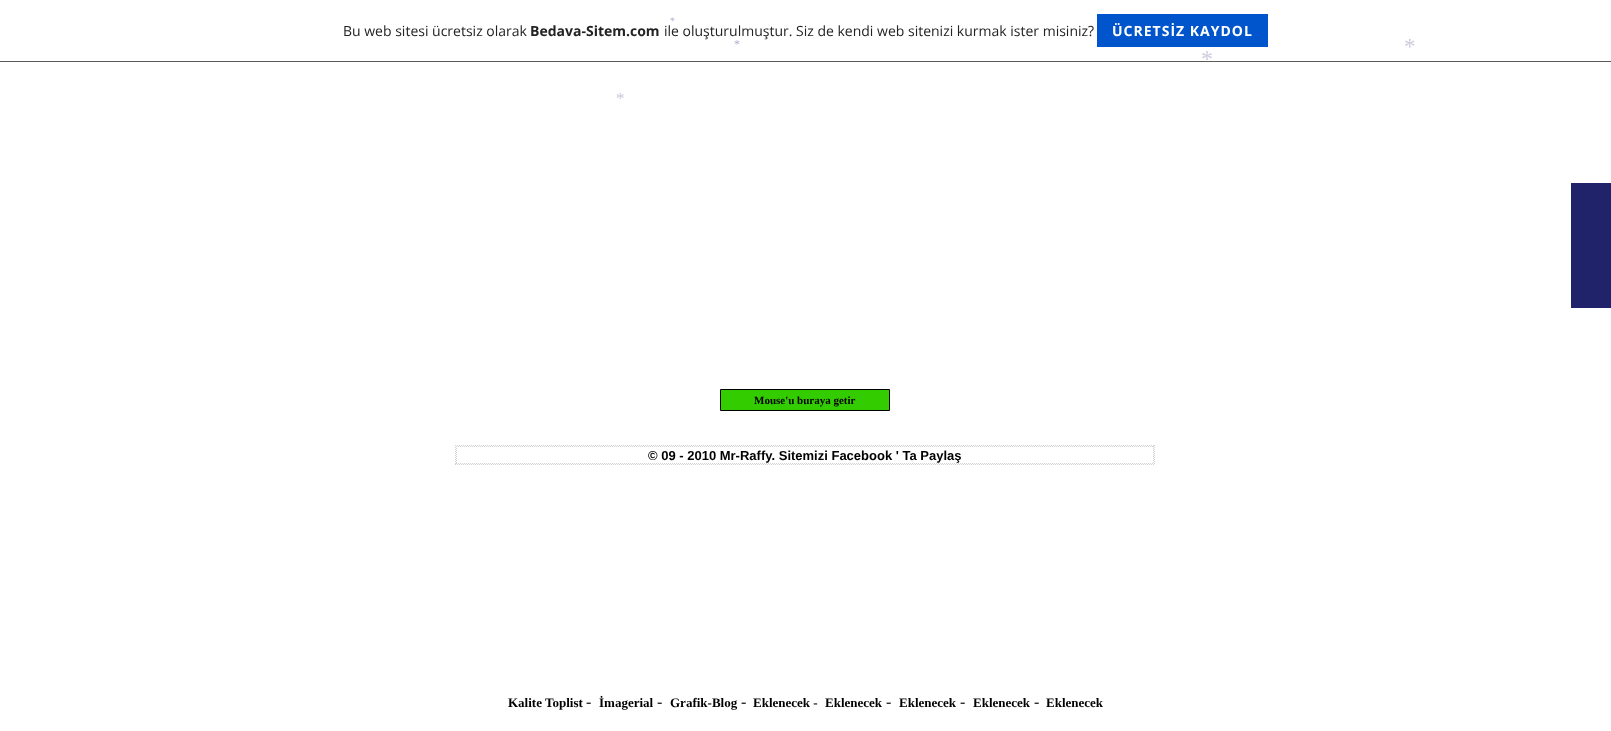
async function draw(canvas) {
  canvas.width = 1611;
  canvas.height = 731;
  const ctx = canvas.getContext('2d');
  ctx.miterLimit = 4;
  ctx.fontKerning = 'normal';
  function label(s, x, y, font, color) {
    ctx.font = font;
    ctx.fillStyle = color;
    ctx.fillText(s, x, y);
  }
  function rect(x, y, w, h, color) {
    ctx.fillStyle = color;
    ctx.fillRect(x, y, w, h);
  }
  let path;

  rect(0, 0, 1611, 731, '#fff');
  label('*', 670, 24, '10px Liberation Serif', '#aac');
  rect(0, 61, 1611, 1, '#5a5a5a');
  label('Bu web sitesi ücretsiz olarak', 343, 36, '14px Open Sans', '#232323');
  label('Bedava-Sitem.com', 530, 36, 'bold 14px Open Sans', '#232323');
  label('ile oluşturulmuştur. Siz de kendi web sitenizi kurmak ister misiniz?', 664, 36, '14px Open Sans', '#232323');
  rect(1097, 14, 171, 33, '#05c');
  ctx.letterSpacing = '1px';
  label('ÜCRETSİZ KAYDOL', 1112, 36, 'bold 14px Open Sans', '#fff');
  ctx.letterSpacing = '0px';
  label('*', 734, 48, '12px Liberation Serif', '#aac');
  label('*', 1404, 54, '23px Liberation Serif', '#ccd');
  label('*', 1201, 67, '24px Liberation Serif', '#ccd');
  label('*', 616, 104, '17px Liberation Serif', '#ccd');
  rect(1571, 183, 40, 125, '#21236a');
  ctx.fillStyle = '#3c0';
  ctx.beginPath();
  ctx.rect(720.5, 389.5, 169, 21);
  ctx.fill();
  ctx.strokeStyle = '#000';
  ctx.stroke();
  label('Mouse\'u buraya getir', 754, 404, 'bold 11px Liberation Serif', '#000');
  path = new Path2D('M455 445.5H1155');
  ctx.strokeStyle = '#d3d3d3';
  ctx.setLineDash([1, 1]);
  ctx.stroke(path);
  path = new Path2D('M1154.5 445V465');
  ctx.stroke(path);
  path = new Path2D('M455 464.5H1155');
  ctx.stroke(path);
  path = new Path2D('M455.5 445V465');
  ctx.stroke(path);
  path = new Path2D('M456 446.5H1154');
  ctx.stroke(path);
  path = new Path2D('M1153.5 446V464');
  ctx.stroke(path);
  path = new Path2D('M456 463.5H1154');
  ctx.stroke(path);
  path = new Path2D('M456.5 446V464');
  ctx.stroke(path);
  label('© 09 - 2010 Mr-Raffy. Sitemizi Facebook \' Ta Paylaş', 648, 460, 'bold 13px Liberation Sans', '#000');
  label('Kalite Toplist', 508, 707, 'bold 13px Liberation Serif', '#000');
  label('-', 586, 707, '16px Liberation Serif', '#000');
  label('İmagerial', 599, 707, 'bold 13px Liberation Serif', '#000');
  label('-', 657, 707, '16px Liberation Serif', '#000');
  label('Grafik-Blog', 670, 707, 'bold 13px Liberation Serif', '#000');
  label('-', 741, 707, '16px Liberation Serif', '#000');
  label('Eklenecek -', 753, 707, 'bold 13px Liberation Serif', '#000');
  label('Eklenecek', 825, 707, 'bold 13px Liberation Serif', '#000');
  label('-', 886, 707, '16px Liberation Serif', '#000');
  label('Eklenecek', 899, 707, 'bold 13px Liberation Serif', '#000');
  label('-', 960, 707, '16px Liberation Serif', '#000');
  label('Eklenecek', 973, 707, 'bold 13px Liberation Serif', '#000');
  label('-', 1034, 707, '16px Liberation Serif', '#000');
  label('Eklenecek', 1046, 707, 'bold 13px Liberation Serif', '#000');
}

draw(document.querySelector('canvas'));
